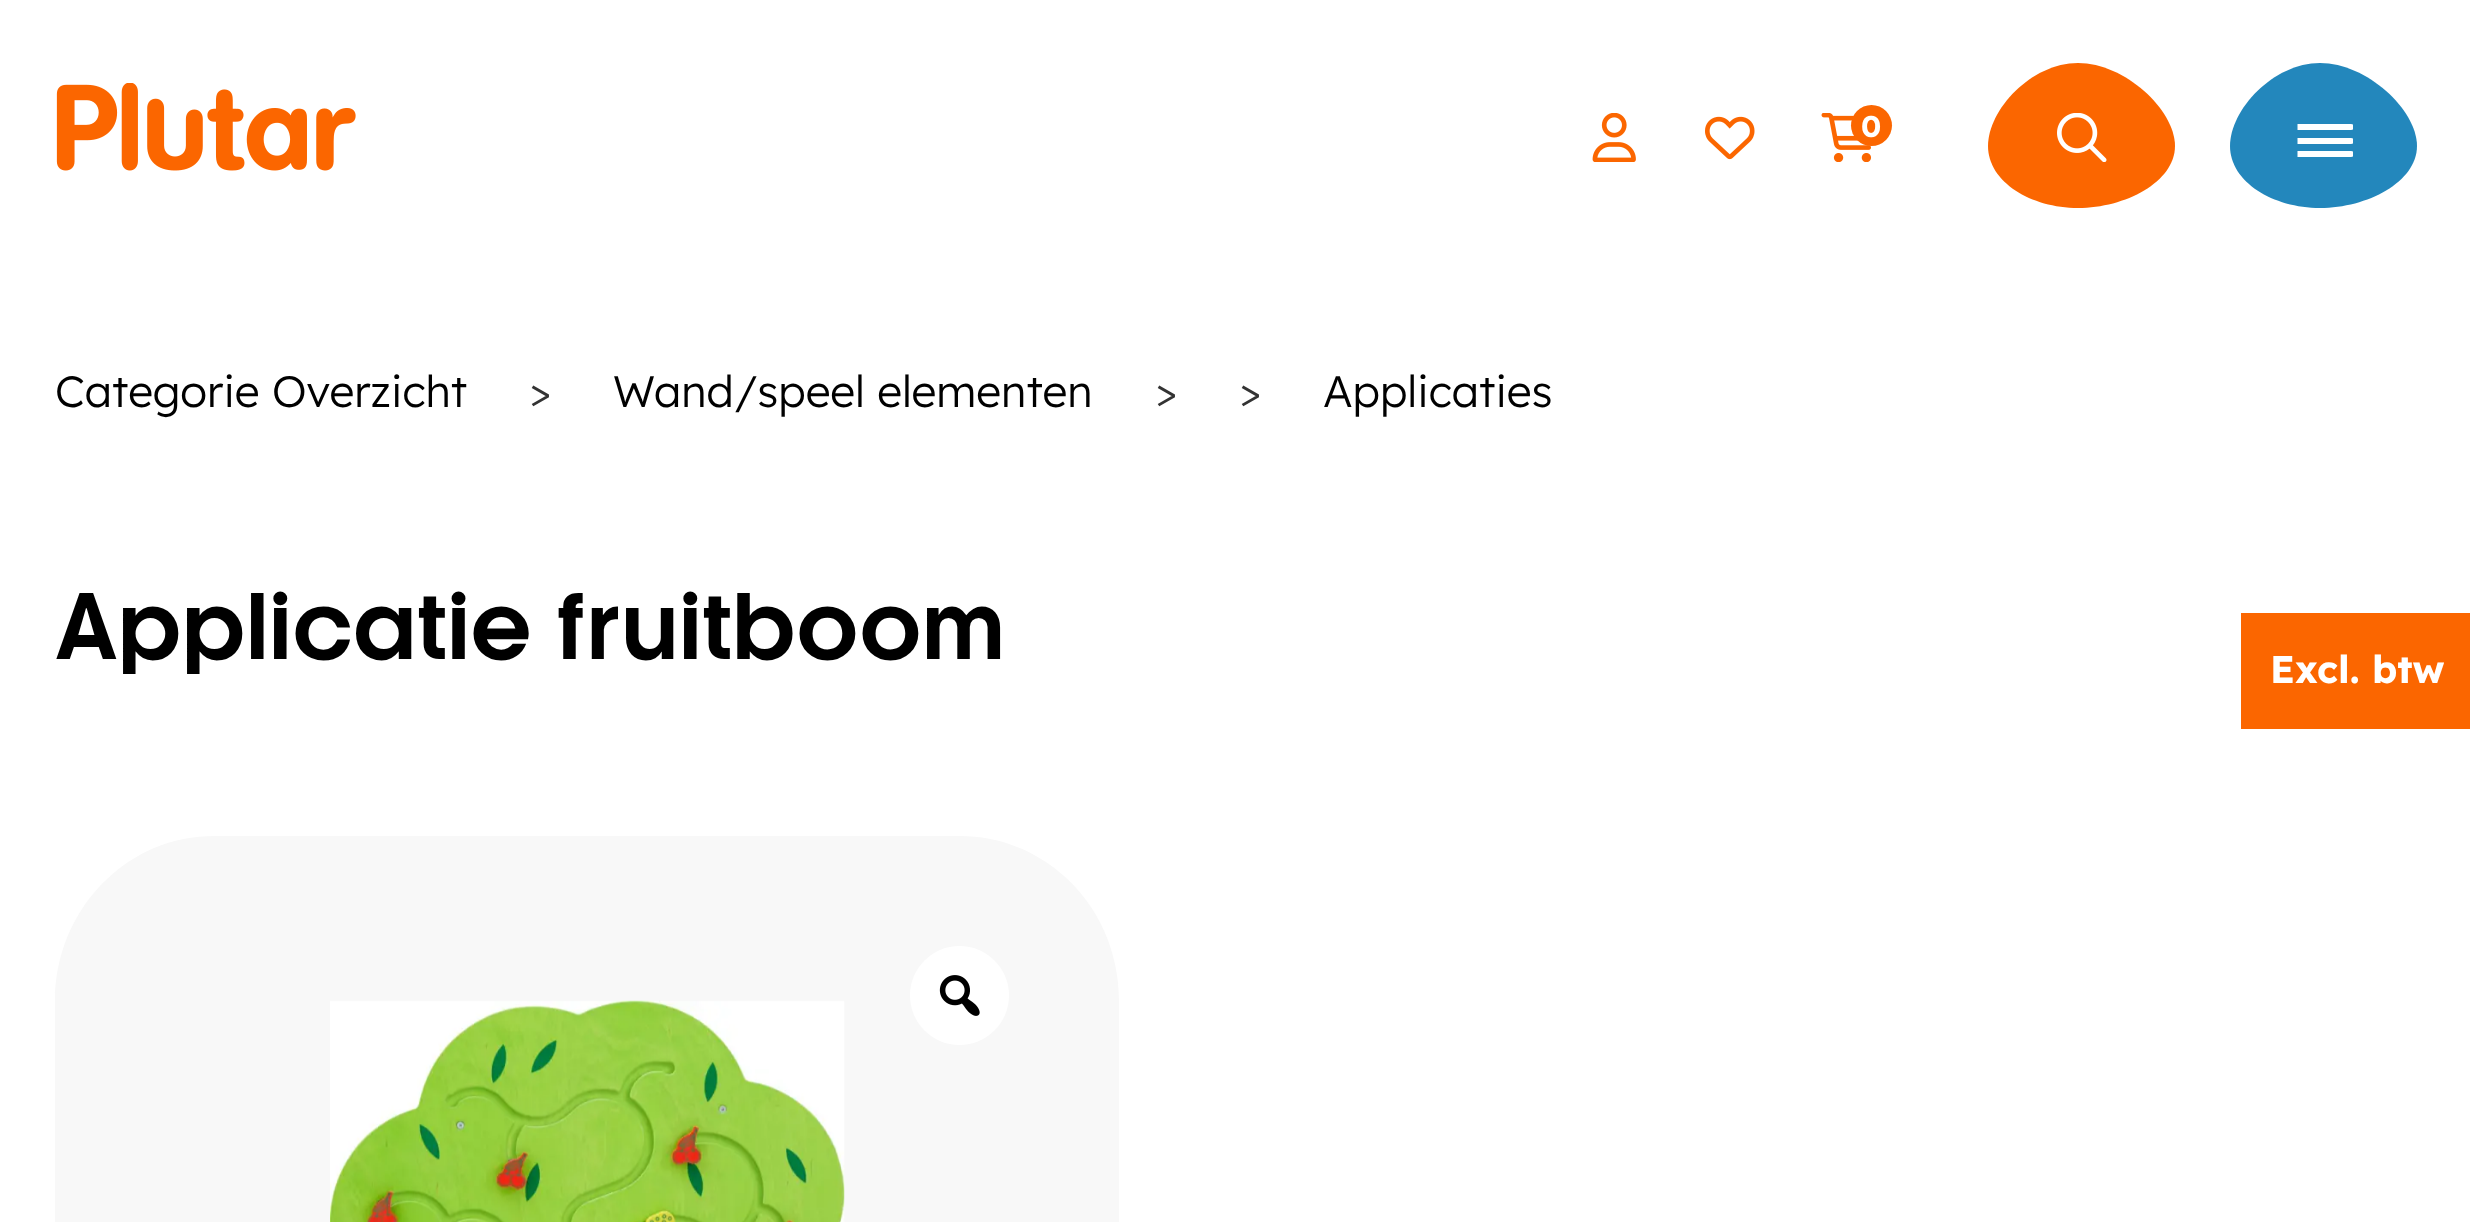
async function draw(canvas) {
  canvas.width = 2470;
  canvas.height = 1222;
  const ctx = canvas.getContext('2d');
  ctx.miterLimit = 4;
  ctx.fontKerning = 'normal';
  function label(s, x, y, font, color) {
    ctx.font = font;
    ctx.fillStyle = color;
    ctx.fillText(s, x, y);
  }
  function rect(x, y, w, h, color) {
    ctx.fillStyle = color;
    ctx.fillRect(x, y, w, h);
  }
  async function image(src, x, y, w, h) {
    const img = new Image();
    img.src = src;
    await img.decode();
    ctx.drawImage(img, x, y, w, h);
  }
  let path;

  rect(0, 0, 2470, 1222, '#fff');
  await image('assets/img1.png', 56, 83, 300, 88);
  await image('assets/img2.png', 1592, 113, 44, 49);
  await image('assets/img3.png', 1705, 116, 50, 44);
  await image('assets/img4.png', 1821, 113, 50, 49);
  ctx.fillStyle = '#fb6600';
  ctx.beginPath();
  ctx.arc(1871.5, 125.5, 20.5, 0, 2 * Math.PI);
  ctx.fill();
  label('0', 1861, 137, 'bold 30px Lexend', '#fff');
  ctx.fillStyle = '#fb6600';
  path = new Path2D('M2175 146C2175 182 2125 208 2078 208C2031 208 1988 182 1988 146C1988 110 2031 63 2078 63C2125 63 2175 110 2175 146Z');
  ctx.fill(path);
  await image('assets/img5.png', 2057, 113, 50, 49);
  ctx.fillStyle = '#2387bc';
  path = new Path2D('M2417 146C2417 182 2367 208 2320 208C2273 208 2230 182 2230 146C2230 110 2273 63 2320 63C2367 63 2417 110 2417 146Z');
  ctx.fill(path);
  ctx.save();
  ctx.beginPath();
  ctx.roundRect(2294, 151, 60, 6, 3);
  ctx.clip();
  path = new Path2D('M2325 44.5L2325.5 263.5');
  ctx.strokeStyle = '#fff';
  ctx.lineWidth = 55.5;
  ctx.lineCap = 'round';
  ctx.lineJoin = 'round';
  ctx.stroke(path);
  ctx.restore();
  ctx.save();
  ctx.beginPath();
  ctx.roundRect(2294, 124, 60, 6, 3);
  ctx.clip();
  path = new Path2D('M2325 17L2325.5 236');
  ctx.strokeStyle = '#fff';
  ctx.lineWidth = 55.5;
  ctx.lineCap = 'round';
  ctx.lineJoin = 'round';
  ctx.stroke(path);
  ctx.restore();
  ctx.save();
  ctx.beginPath();
  ctx.roundRect(2294, 138, 60, 6, 3);
  ctx.clip();
  path = new Path2D('M2325 30.5L2325.5 250');
  ctx.strokeStyle = '#fff';
  ctx.lineWidth = 55.5;
  ctx.lineCap = 'round';
  ctx.lineJoin = 'round';
  ctx.stroke(path);
  ctx.restore();
  label('Categorie Overzicht', 55, 407, '300 44px Lexend', '#000');
  label('>', 529, 407, '300 44px Lexend', '#333');
  label('Wand/speel elementen', 613, 407, '300 44px Lexend', '#000');
  label('>', 1155, 407, '300 44px Lexend', '#333');
  label('>', 1239, 407, '300 44px Lexend', '#333');
  label('Applicaties', 1323, 407, '300 44px Lexend', '#000');
  label('Applicatie fruitboom', 55, 659, 'bold 88px "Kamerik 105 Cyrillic"', '#000');
  ctx.fillStyle = '#f8f8f8';
  path = new Path2D('M215 836C193 836 173 840 154 848C96 873 55 932 55 1001V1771C55 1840 96 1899 154 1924C173 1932 193 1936 215 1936H960C1000 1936 1036 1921 1064 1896C1098 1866 1119 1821 1119 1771V1001C1119 951 1098 906 1064 876C1036 851 1000 836 960 836Z');
  ctx.fill(path);
  await image('assets/img6.png', 330, 1000, 515, 222);
  ctx.fillStyle = '#fff';
  ctx.beginPath();
  ctx.arc(959.5, 995.5, 49.5, 0, 2 * Math.PI);
  ctx.fill();
  await image('assets/img7.png', 939, 975, 41, 41);
  rect(2241, 613, 229, 116, '#fb6600');
  label('Excl. btw', 2270, 683, 'bold 38.5px Lexend', '#fff');
}

draw(document.querySelector('canvas'));
